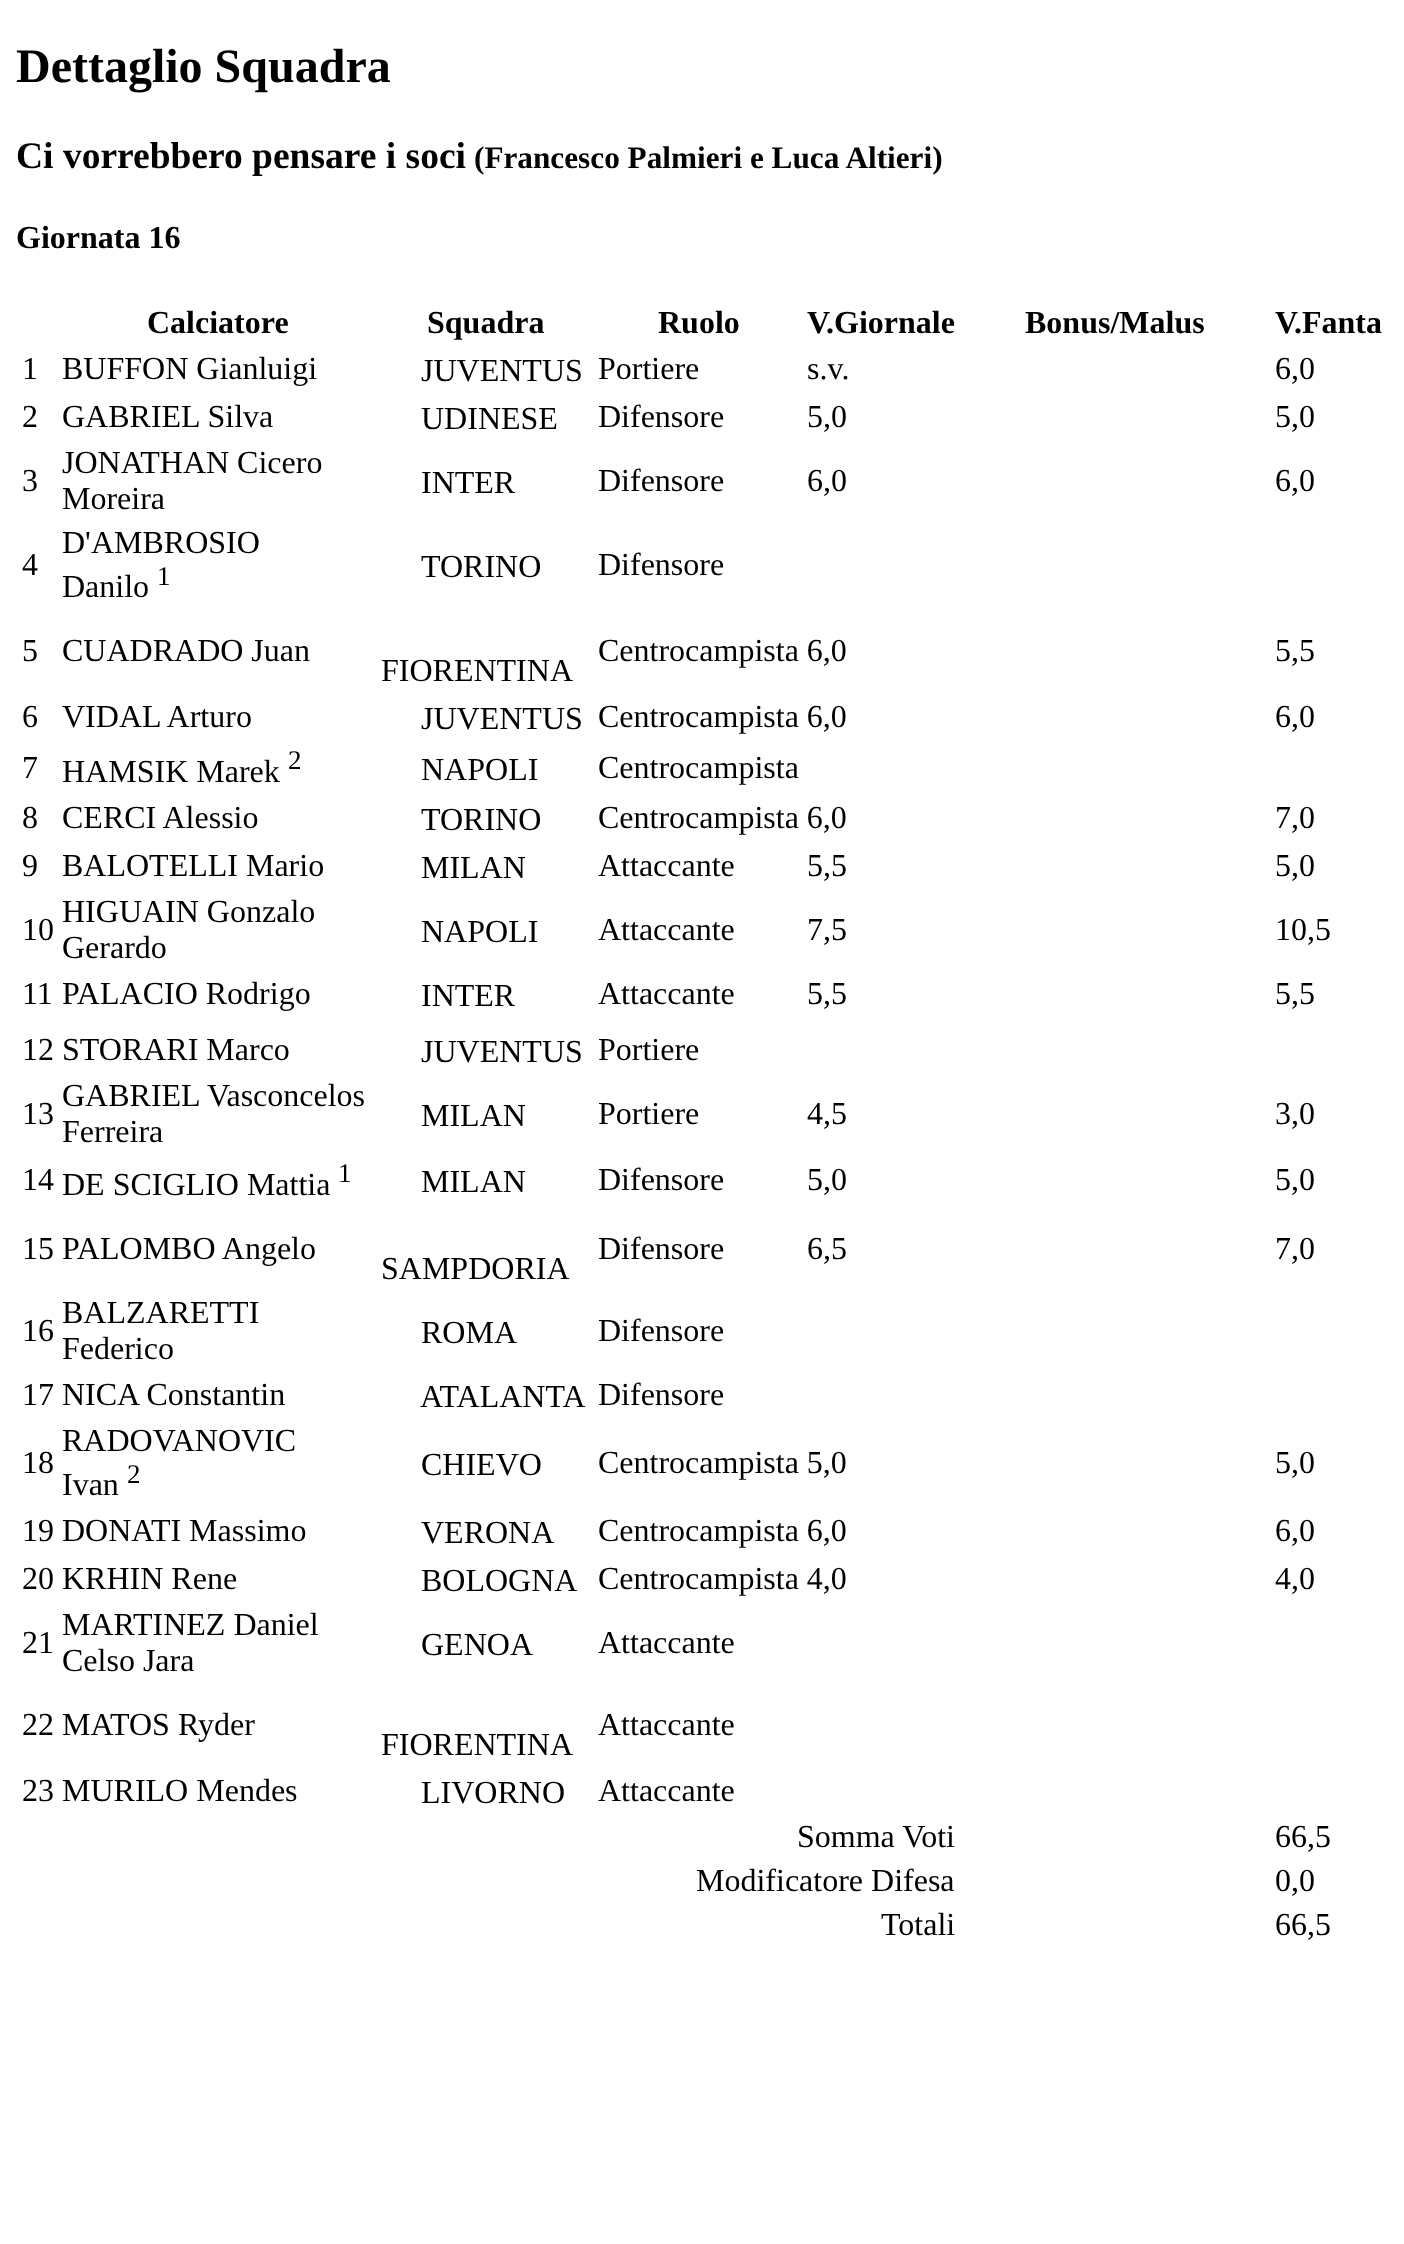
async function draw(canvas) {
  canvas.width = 1404;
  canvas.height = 2244;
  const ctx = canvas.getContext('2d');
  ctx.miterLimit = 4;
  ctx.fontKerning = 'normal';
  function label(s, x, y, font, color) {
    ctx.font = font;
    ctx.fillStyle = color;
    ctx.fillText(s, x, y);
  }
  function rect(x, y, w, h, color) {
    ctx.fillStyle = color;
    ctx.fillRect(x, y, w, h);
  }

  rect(0, 0, 1404, 2244, '#fff');
  label('Dettaglio Squadra', 16, 82, 'bold 48px Liberation Serif', '#000');
  label('Ci vorrebbero pensare i soci', 16, 168, 'bold 37.5px Liberation Serif', '#000');
  label('(Francesco Palmieri e Luca Altieri)', 474, 168, 'bold 31.25px Liberation Serif', '#000');
  label('Giornata 16', 16, 248, 'bold 32px Liberation Serif', '#000');
  label('Calciatore', 147, 333, 'bold 32px Liberation Serif', '#000');
  label('Squadra', 427, 333, 'bold 32px Liberation Serif', '#000');
  label('Ruolo', 658, 333, 'bold 32px Liberation Serif', '#000');
  label('V.Giornale', 807, 333, 'bold 32px Liberation Serif', '#000');
  label('Bonus/Malus', 1025, 333, 'bold 32px Liberation Serif', '#000');
  label('V.Fanta', 1275, 333, 'bold 32px Liberation Serif', '#000');
  label('1', 22, 379, '32px Liberation Serif', '#000');
  label('BUFFON Gianluigi', 62, 379, '32px Liberation Serif', '#000');
  label('JUVENTUS', 421, 381, '32px Liberation Serif', '#000');
  label('Portiere', 598, 379, '32px Liberation Serif', '#000');
  label('s.v.', 807, 379, '32px Liberation Serif', '#000');
  label('6,0', 1275, 379, '32px Liberation Serif', '#000');
  label('2', 22, 427, '32px Liberation Serif', '#000');
  label('GABRIEL Silva', 62, 427, '32px Liberation Serif', '#000');
  label('UDINESE', 421, 429, '32px Liberation Serif', '#000');
  label('Difensore', 598, 427, '32px Liberation Serif', '#000');
  label('5,0', 807, 427, '32px Liberation Serif', '#000');
  label('5,0', 1275, 427, '32px Liberation Serif', '#000');
  label('3', 22, 491, '32px Liberation Serif', '#000');
  label('JONATHAN Cicero', 62, 473, '32px Liberation Serif', '#000');
  label('Moreira', 62, 509, '32px Liberation Serif', '#000');
  label('INTER', 421, 493, '32px Liberation Serif', '#000');
  label('Difensore', 598, 491, '32px Liberation Serif', '#000');
  label('6,0', 807, 491, '32px Liberation Serif', '#000');
  label('6,0', 1275, 491, '32px Liberation Serif', '#000');
  label('4', 22, 575, '32px Liberation Serif', '#000');
  label('D\'AMBROSIO', 62, 553, '32px Liberation Serif', '#000');
  label('Danilo', 62, 597, '32px Liberation Serif', '#000');
  label('1', 157, 585, '27px Liberation Serif', '#000');
  label('TORINO', 421, 577, '32px Liberation Serif', '#000');
  label('Difensore', 598, 575, '32px Liberation Serif', '#000');
  label('5', 22, 661, '32px Liberation Serif', '#000');
  label('CUADRADO Juan', 62, 661, '32px Liberation Serif', '#000');
  label('Centrocampista 6,0', 598, 661, '32px Liberation Serif', '#000');
  label('5,5', 1275, 661, '32px Liberation Serif', '#000');
  label('FIORENTINA', 381, 681, '32px Liberation Serif', '#000');
  label('6', 22, 727, '32px Liberation Serif', '#000');
  label('VIDAL Arturo', 62, 727, '32px Liberation Serif', '#000');
  label('JUVENTUS', 421, 729, '32px Liberation Serif', '#000');
  label('Centrocampista 6,0', 598, 727, '32px Liberation Serif', '#000');
  label('6,0', 1275, 727, '32px Liberation Serif', '#000');
  label('7', 22, 778, '32px Liberation Serif', '#000');
  label('HAMSIK Marek', 62, 782, '32px Liberation Serif', '#000');
  label('2', 288, 769, '27px Liberation Serif', '#000');
  label('NAPOLI', 421, 780, '32px Liberation Serif', '#000');
  label('Centrocampista', 598, 778, '32px Liberation Serif', '#000');
  label('8', 22, 828, '32px Liberation Serif', '#000');
  label('CERCI Alessio', 62, 828, '32px Liberation Serif', '#000');
  label('TORINO', 421, 830, '32px Liberation Serif', '#000');
  label('Centrocampista 6,0', 598, 828, '32px Liberation Serif', '#000');
  label('7,0', 1275, 828, '32px Liberation Serif', '#000');
  label('9', 22, 876, '32px Liberation Serif', '#000');
  label('BALOTELLI Mario', 62, 876, '32px Liberation Serif', '#000');
  label('MILAN', 421, 878, '32px Liberation Serif', '#000');
  label('Attaccante', 598, 876, '32px Liberation Serif', '#000');
  label('5,5', 807, 876, '32px Liberation Serif', '#000');
  label('5,0', 1275, 876, '32px Liberation Serif', '#000');
  label('10', 22, 940, '32px Liberation Serif', '#000');
  label('HIGUAIN Gonzalo', 62, 922, '32px Liberation Serif', '#000');
  label('Gerardo', 62, 958, '32px Liberation Serif', '#000');
  label('NAPOLI', 421, 942, '32px Liberation Serif', '#000');
  label('Attaccante', 598, 940, '32px Liberation Serif', '#000');
  label('7,5', 807, 940, '32px Liberation Serif', '#000');
  label('10,5', 1275, 940, '32px Liberation Serif', '#000');
  label('11', 22, 1004, '32px Liberation Serif', '#000');
  label('PALACIO Rodrigo', 62, 1004, '32px Liberation Serif', '#000');
  label('INTER', 421, 1006, '32px Liberation Serif', '#000');
  label('Attaccante', 598, 1004, '32px Liberation Serif', '#000');
  label('5,5', 807, 1004, '32px Liberation Serif', '#000');
  label('5,5', 1275, 1004, '32px Liberation Serif', '#000');
  label('12 STORARI Marco', 22, 1060, '32px Liberation Serif', '#000');
  label('JUVENTUS', 421, 1062, '32px Liberation Serif', '#000');
  label('Portiere', 598, 1060, '32px Liberation Serif', '#000');
  label('13', 22, 1124, '32px Liberation Serif', '#000');
  label('GABRIEL Vasconcelos', 62, 1106, '32px Liberation Serif', '#000');
  label('Ferreira', 62, 1142, '32px Liberation Serif', '#000');
  label('MILAN', 421, 1126, '32px Liberation Serif', '#000');
  label('Portiere', 598, 1124, '32px Liberation Serif', '#000');
  label('4,5', 807, 1124, '32px Liberation Serif', '#000');
  label('3,0', 1275, 1124, '32px Liberation Serif', '#000');
  label('14', 22, 1190, '32px Liberation Serif', '#000');
  label('DE SCIGLIO Mattia', 62, 1195, '32px Liberation Serif', '#000');
  label('1', 338, 1182, '27px Liberation Serif', '#000');
  label('MILAN', 421, 1192, '32px Liberation Serif', '#000');
  label('Difensore', 598, 1190, '32px Liberation Serif', '#000');
  label('5,0', 807, 1190, '32px Liberation Serif', '#000');
  label('5,0', 1275, 1190, '32px Liberation Serif', '#000');
  label('15 PALOMBO Angelo', 22, 1259, '32px Liberation Serif', '#000');
  label('Difensore', 598, 1259, '32px Liberation Serif', '#000');
  label('6,5', 807, 1259, '32px Liberation Serif', '#000');
  label('7,0', 1275, 1259, '32px Liberation Serif', '#000');
  label('SAMPDORIA', 381, 1279, '32px Liberation Serif', '#000');
  label('16', 22, 1341, '32px Liberation Serif', '#000');
  label('BALZARETTI', 62, 1323, '32px Liberation Serif', '#000');
  label('Federico', 62, 1359, '32px Liberation Serif', '#000');
  label('ROMA', 421, 1343, '32px Liberation Serif', '#000');
  label('Difensore', 598, 1341, '32px Liberation Serif', '#000');
  label('17 NICA Constantin', 22, 1405, '32px Liberation Serif', '#000');
  label('ATALANTA', 420, 1407, '32px Liberation Serif', '#000');
  label('Difensore', 598, 1405, '32px Liberation Serif', '#000');
  label('18', 22, 1473, '32px Liberation Serif', '#000');
  label('RADOVANOVIC', 62, 1451, '32px Liberation Serif', '#000');
  label('Ivan', 62, 1495, '32px Liberation Serif', '#000');
  label('2', 127, 1483, '27px Liberation Serif', '#000');
  label('CHIEVO', 421, 1475, '32px Liberation Serif', '#000');
  label('Centrocampista 5,0', 598, 1473, '32px Liberation Serif', '#000');
  label('5,0', 1275, 1473, '32px Liberation Serif', '#000');
  label('19 DONATI Massimo', 22, 1541, '32px Liberation Serif', '#000');
  label('VERONA', 421, 1543, '32px Liberation Serif', '#000');
  label('Centrocampista 6,0', 598, 1541, '32px Liberation Serif', '#000');
  label('6,0', 1275, 1541, '32px Liberation Serif', '#000');
  label('20 KRHIN Rene', 22, 1589, '32px Liberation Serif', '#000');
  label('BOLOGNA', 421, 1591, '32px Liberation Serif', '#000');
  label('Centrocampista 4,0', 598, 1589, '32px Liberation Serif', '#000');
  label('4,0', 1275, 1589, '32px Liberation Serif', '#000');
  label('21', 22, 1653, '32px Liberation Serif', '#000');
  label('MARTINEZ Daniel', 62, 1635, '32px Liberation Serif', '#000');
  label('Celso Jara', 62, 1671, '32px Liberation Serif', '#000');
  label('GENOA', 421, 1655, '32px Liberation Serif', '#000');
  label('Attaccante', 598, 1653, '32px Liberation Serif', '#000');
  label('22 MATOS Ryder', 22, 1735, '32px Liberation Serif', '#000');
  label('Attaccante', 598, 1735, '32px Liberation Serif', '#000');
  label('FIORENTINA', 381, 1755, '32px Liberation Serif', '#000');
  label('23 MURILO Mendes', 22, 1801, '32px Liberation Serif', '#000');
  label('LIVORNO', 421, 1803, '32px Liberation Serif', '#000');
  label('Attaccante', 598, 1801, '32px Liberation Serif', '#000');
  label('Somma Voti', 797, 1847, '32px Liberation Serif', '#000');
  label('66,5', 1275, 1847, '32px Liberation Serif', '#000');
  label('Modificatore Difesa', 696, 1891, '32px Liberation Serif', '#000');
  label('0,0', 1275, 1891, '32px Liberation Serif', '#000');
  label('Totali', 881, 1935, '32px Liberation Serif', '#000');
  label('66,5', 1275, 1935, '32px Liberation Serif', '#000');
}

draw(document.querySelector('canvas'));
